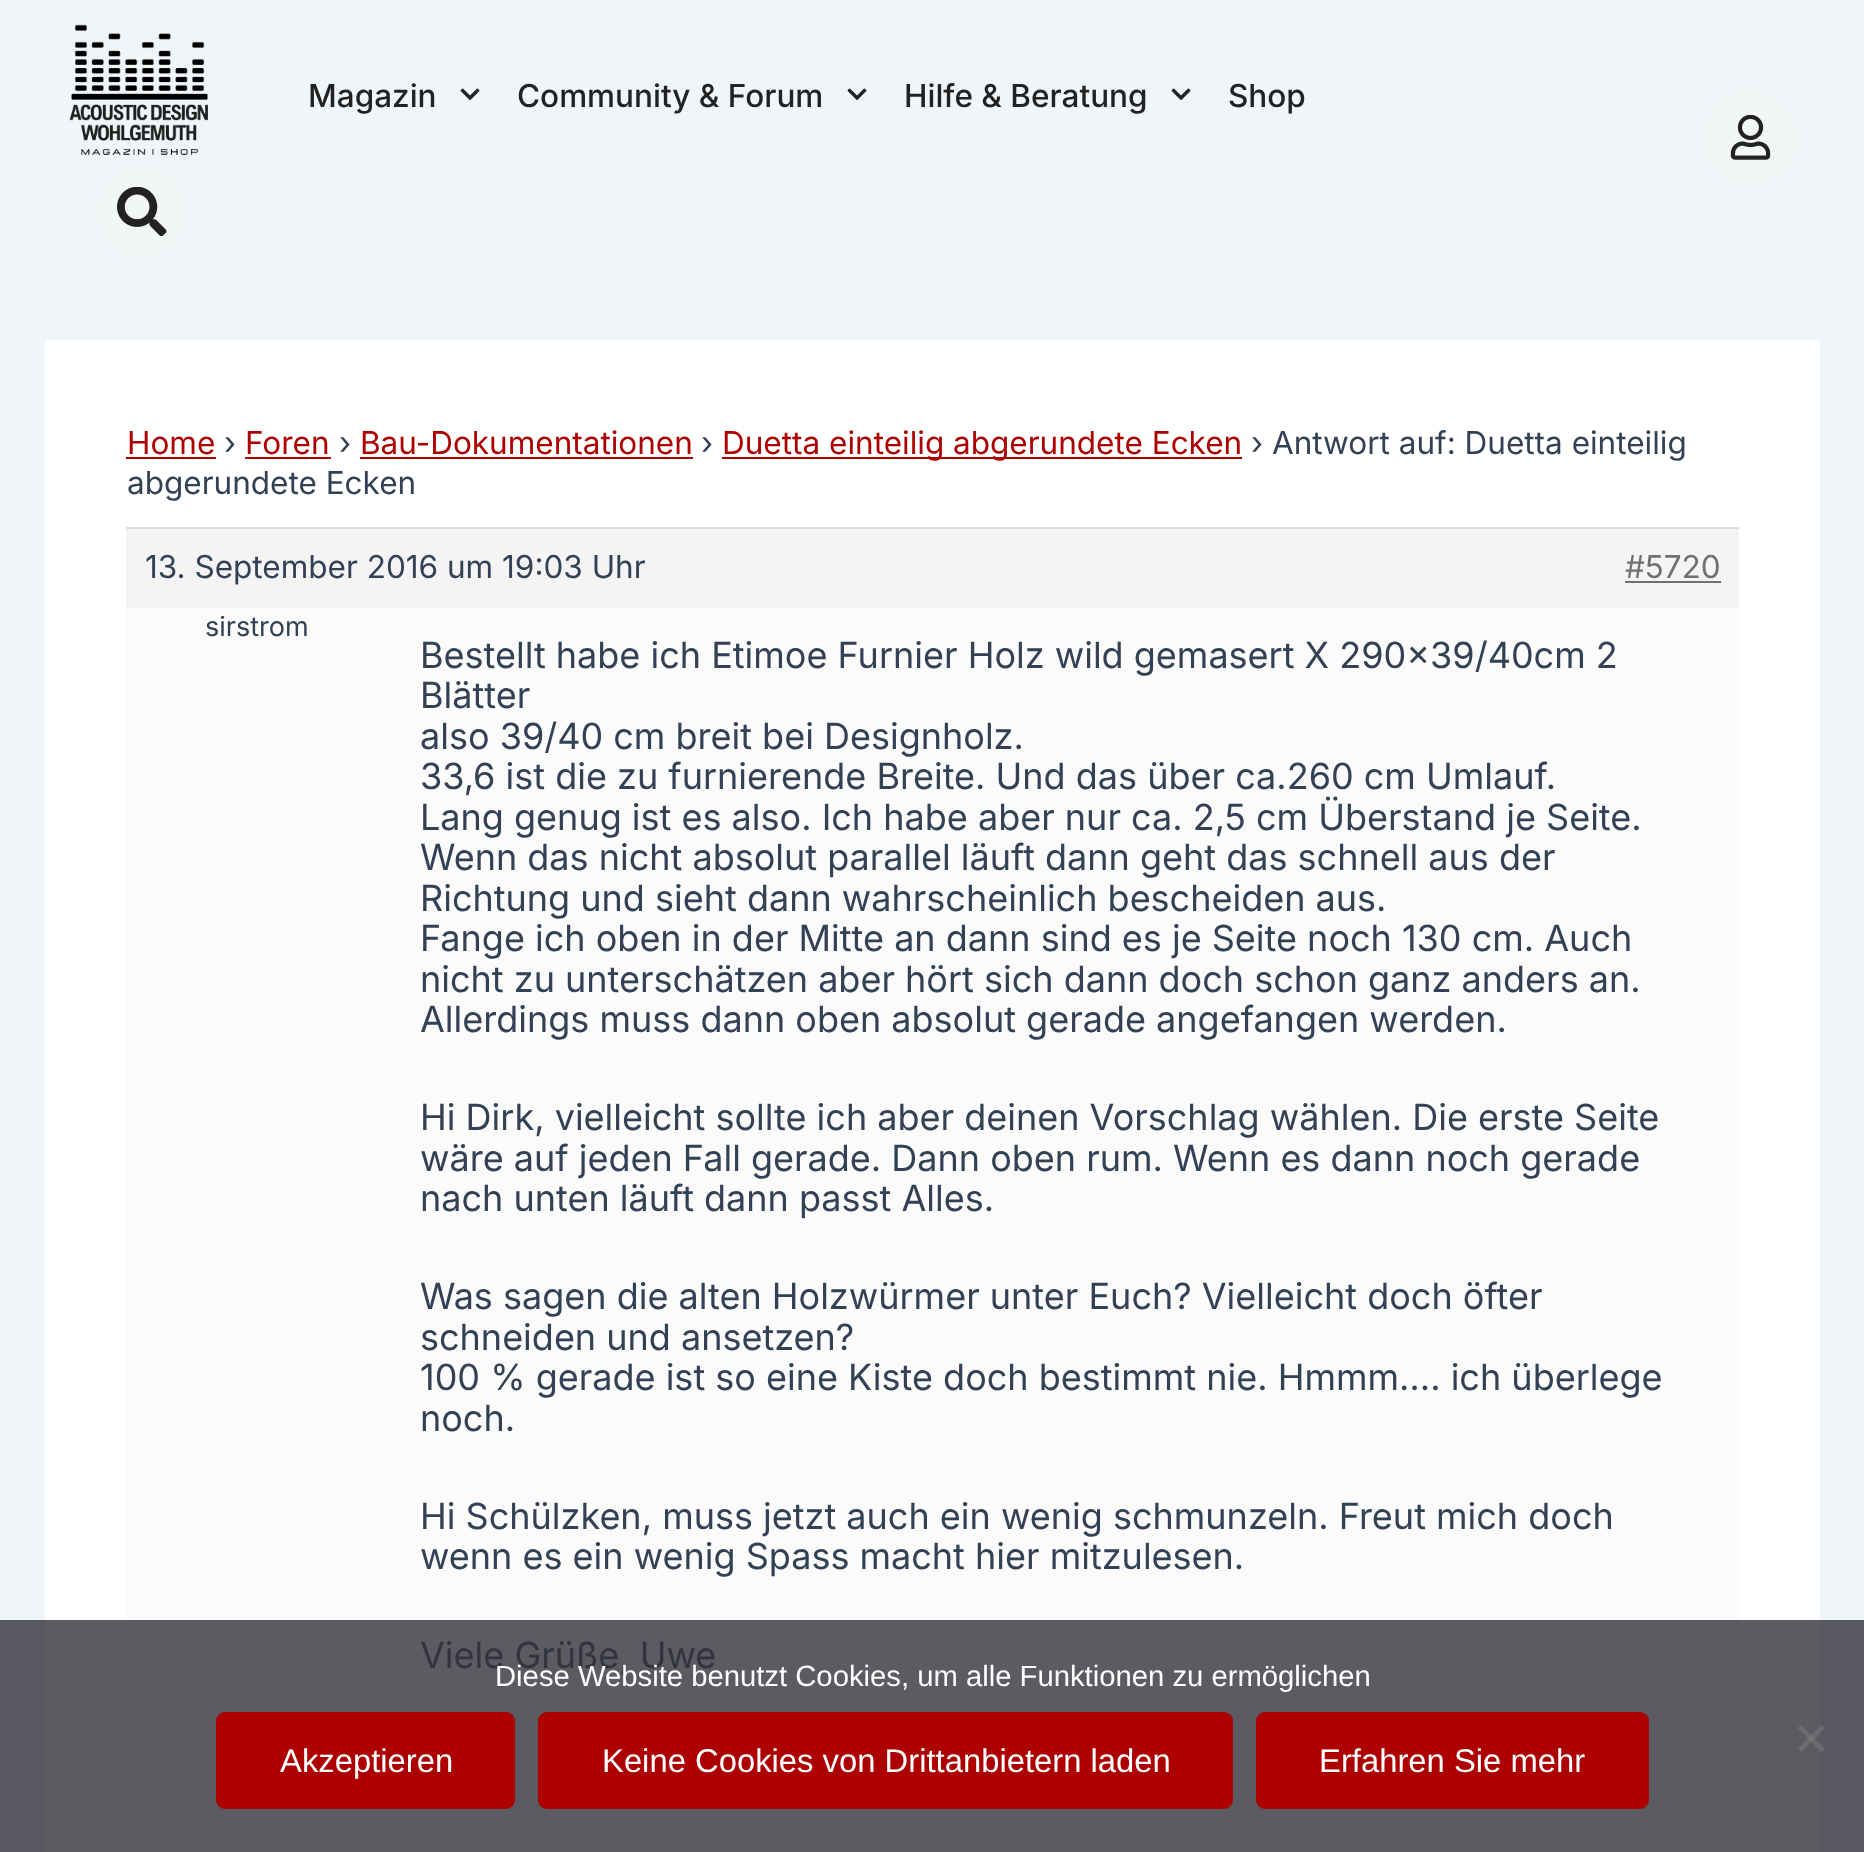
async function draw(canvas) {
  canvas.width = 1864;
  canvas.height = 1852;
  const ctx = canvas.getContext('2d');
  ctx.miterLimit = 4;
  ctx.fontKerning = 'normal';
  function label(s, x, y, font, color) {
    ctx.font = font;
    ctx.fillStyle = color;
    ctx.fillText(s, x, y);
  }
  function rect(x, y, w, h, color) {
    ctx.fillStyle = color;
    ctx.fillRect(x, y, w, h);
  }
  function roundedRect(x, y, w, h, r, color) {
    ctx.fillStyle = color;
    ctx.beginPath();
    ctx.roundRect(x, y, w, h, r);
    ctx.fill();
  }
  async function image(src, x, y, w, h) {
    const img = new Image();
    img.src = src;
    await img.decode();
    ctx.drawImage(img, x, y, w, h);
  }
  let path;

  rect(0, 0, 1864, 1852, '#f0f5fa');
  rect(0, 1620, 1864, 232, '#585960');
  await image('assets/img1.png', 69, 24, 139, 131);
  label('Magazin', 308, 107, '500 31.5px Inter', '#222');
  await image('assets/img2.png', 460, 88, 20, 12);
  label('Community & Forum', 517, 107, '500 31.5px Inter', '#222');
  await image('assets/img2.png', 847, 88, 20, 12);
  label('Hilfe & Beratung', 904, 107, '500 31.5px Inter', '#222');
  await image('assets/img2.png', 1171, 88, 20, 12);
  label('Shop', 1228, 107, '500 31.5px Inter', '#222');
  ctx.fillStyle = '#f2f6f5';
  ctx.beginPath();
  ctx.arc(142, 212, 45, 0, 2 * Math.PI);
  ctx.fill();
  await image('assets/img3.png', 117, 187, 50, 49);
  ctx.beginPath();
  ctx.arc(1750.5, 137.5, 47.5, 0, 2 * Math.PI);
  ctx.fill();
  await image('assets/img4.png', 1730, 115, 41, 45);
  rect(45, 340, 1775, 1280, '#fff');
  rect(45, 1620, 1775, 232, '#5b5b61');
  label('Home', 127, 454, '31.5px Inter', '#ad0000');
  rect(126, 457, 90, 2, '#ad0000');
  label('›', 224, 454, '31.5px Inter', '#334155');
  label('Foren', 245, 454, '31.5px Inter', '#ad0000');
  rect(245, 457, 86, 2, '#ad0000');
  label('›', 339, 454, '31.5px Inter', '#334155');
  label('Bau-Dokumentationen', 360, 454, '31.5px Inter', '#ad0000');
  rect(360, 457, 333, 2, '#ad0000');
  label('›', 701, 454, '31.5px Inter', '#334155');
  rect(722, 457, 520, 2, '#ad0000');
  label('Duetta einteilig abgerundete Ecken', 722, 454, '31.5px Inter', '#ad0000');
  label('› Antwort auf: Duetta einteilig', 1251, 454, '31.5px Inter', '#334155');
  label('abgerundete Ecken', 127, 494, '31.5px Inter', '#334155');
  rect(126, 529, 1613, 79, '#f4f4f4');
  rect(126, 527, 1613, 2, '#ddd');
  label('13. September 2016 um 19:03 Uhr', 145, 578, '31.5px Inter', '#334155');
  label('#5720', 1625, 578, '31.5px Inter', '#707070');
  rect(1625, 581, 96, 2, '#707070');
  rect(126, 608, 1613, 1012, '#fbfbfb');
  label('sirstrom', 205, 636, '27px Inter', '#334155');
  label('Bestellt habe ich Etimoe Furnier Holz wild gemasert X 290×39/40cm 2', 420, 668, '36px Inter', '#334155');
  label('Blätter', 420, 708, '36px Inter', '#334155');
  label('also 39/40 cm breit bei Designholz.', 420, 749, '36px Inter', '#334155');
  label('33,6 ist die zu furnierende Breite. Und das über ca.260 cm Umlauf.', 420, 789, '36px Inter', '#334155');
  label('Lang genug ist es also. Ich habe aber nur ca. 2,5 cm Überstand je Seite.', 420, 830, '36px Inter', '#334155');
  label('Wenn das nicht absolut parallel läuft dann geht das schnell aus der', 420, 870, '36px Inter', '#334155');
  label('Richtung und sieht dann wahrscheinlich bescheiden aus.', 420, 911, '36px Inter', '#334155');
  label('Fange ich oben in der Mitte an dann sind es je Seite noch 130 cm. Auch', 420, 951, '36px Inter', '#334155');
  label('nicht zu unterschätzen aber hört sich dann doch schon ganz anders an.', 420, 992, '36px Inter', '#334155');
  label('Allerdings muss dann oben absolut gerade angefangen werden.', 420, 1032, '36px Inter', '#334155');
  label('Hi Dirk, vielleicht sollte ich aber deinen Vorschlag wählen. Die erste Seite', 420, 1130, '36px Inter', '#334155');
  label('wäre auf jeden Fall gerade. Dann oben rum. Wenn es dann noch gerade', 420, 1171, '36px Inter', '#334155');
  label('nach unten läuft dann passt Alles.', 420, 1211, '36px Inter', '#334155');
  label('Was sagen die alten Holzwürmer unter Euch? Vielleicht doch öfter', 420, 1309, '36px Inter', '#334155');
  label('schneiden und ansetzen?', 420, 1350, '36px Inter', '#334155');
  label('100 % gerade ist so eine Kiste doch bestimmt nie. Hmmm…. ich überlege', 420, 1390, '36px Inter', '#334155');
  label('noch.', 420, 1431, '36px Inter', '#334155');
  label('Hi Schülzken, muss jetzt auch ein wenig schmunzeln. Freut mich doch', 420, 1529, '36px Inter', '#334155');
  label('wenn es ein wenig Spass macht hier mitzulesen.', 420, 1569, '36px Inter', '#334155');
  label('Viele Grüße, Uwe', 420, 1668, '36px Inter', '#32353f');
  label('Diese Website benutzt Cookies, um alle Funktionen zu ermöglichen', 495, 1686, '29.25px Liberation Sans', '#fff');
  ctx.fillStyle = '#80808080';
  path = new Path2D('M1821.5 1725L1825 1728L1801 1752L1797.5 1749Z');
  ctx.fill(path);
  path = new Path2D('M1797.5 1728L1801 1725L1825 1749L1821.5 1752Z');
  ctx.fill(path);
  roundedRect(216, 1712, 299, 97, 9, '#ad0000');
  label('Akzeptieren', 280, 1772, '32.8px Liberation Sans', '#fff');
  roundedRect(538, 1712, 695, 97, 9, '#ad0000');
  label('Keine Cookies von Drittanbietern laden', 602, 1772, '32.8px Liberation Sans', '#fff');
  roundedRect(1256, 1712, 393, 97, 9, '#ad0000');
  label('Erfahren Sie mehr', 1319, 1772, '32.8px Liberation Sans', '#fff');
}

draw(document.querySelector('canvas'));
